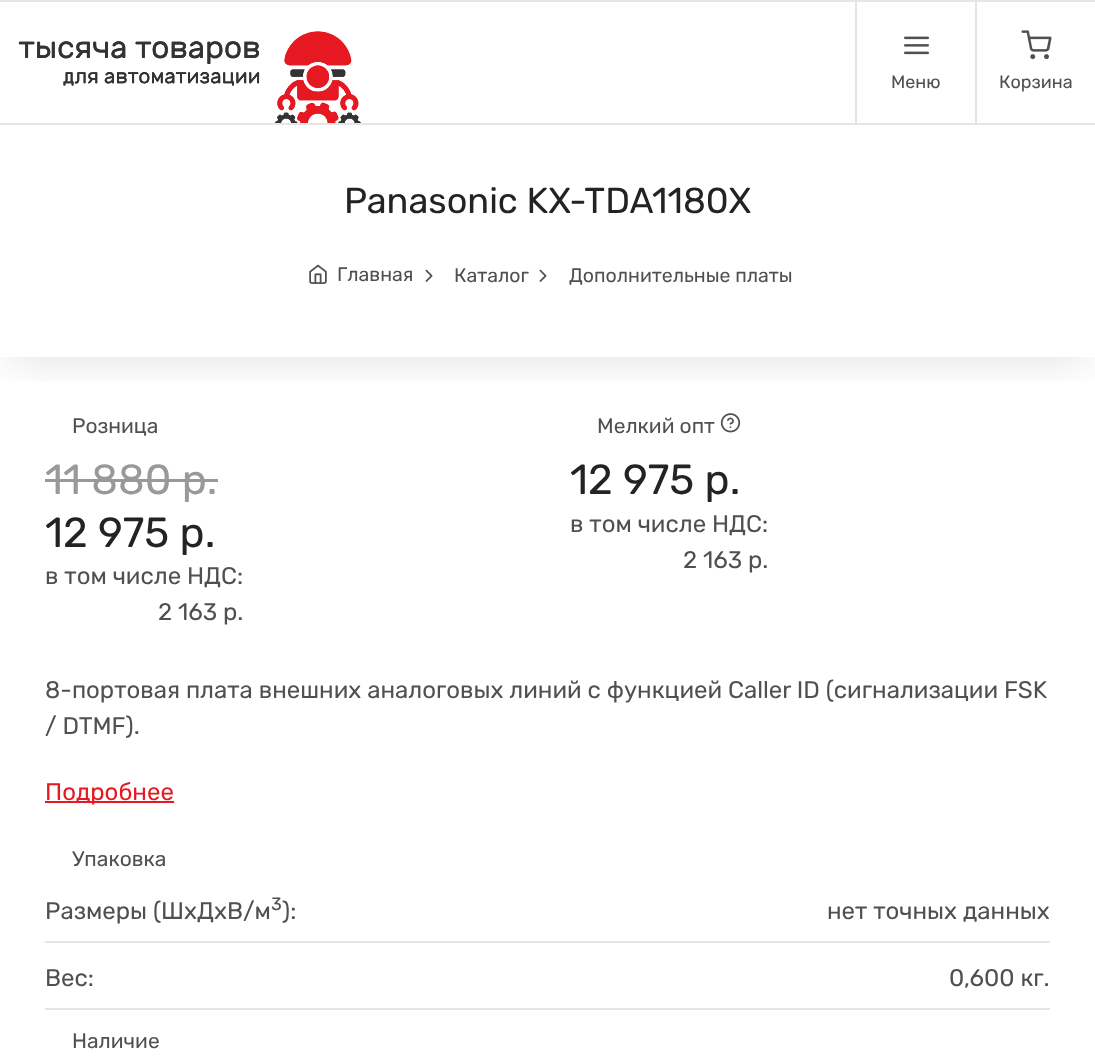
async function draw(canvas) {
  canvas.width = 1095;
  canvas.height = 1061;
  const ctx = canvas.getContext('2d');
  ctx.miterLimit = 4;
  ctx.fontKerning = 'normal';
  function label(s, x, y, font, color) {
    ctx.font = font;
    ctx.fillStyle = color;
    ctx.fillText(s, x, y);
  }
  function rect(x, y, w, h, color) {
    ctx.fillStyle = color;
    ctx.fillRect(x, y, w, h);
  }
  async function image(src, x, y, w, h) {
    const img = new Image();
    img.src = src;
    await img.decode();
    ctx.drawImage(img, x, y, w, h);
  }

  rect(0, 0, 1095, 1061, '#fff');
  ctx.save();
  ctx.beginPath();
  ctx.rect(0, 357, 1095, 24);
  ctx.clip();
  ctx.fillStyle = '#0000001f';
  ctx.filter = 'blur(22.5px)';
  ctx.beginPath();
  ctx.rect(9, 144, 1077, 215);
  ctx.fill();
  ctx.filter = 'none';
  ctx.restore();
  rect(9, 113, 1077, 10, '#fff');
  rect(0, 0, 1095, 2, '#e5e5e5');
  rect(0, 123, 1095, 2, '#e5e5e5');
  await image('assets/img1.png', 18, 31, 343, 92);
  rect(855, 2, 2, 121, '#e5e5e5');
  await image('assets/img2.png', 904, 36, 25, 19);
  label('Меню', 891, 88, '300 18px Rubik', '#505050');
  rect(975, 2, 2, 121, '#e5e5e5');
  await image('assets/img3.png', 1021, 30, 31, 30);
  label('Корзина', 999, 88, '300 18px Rubik', '#505050');
  label('Panasonic KX-TDA1180X', 344, 213, '300 36px Rubik', '#232323');
  await image('assets/img4.png', 309, 264, 18, 20);
  label('Главная', 337, 281, '300 19.5px Rubik', '#505050');
  await image('assets/img5.png', 425, 269, 8, 13);
  label('Каталог', 454, 282, '300 19.5px Rubik', '#505050');
  await image('assets/img5.png', 539, 269, 8, 13);
  label('Дополнительные платы', 569, 282, '300 19.5px Rubik', '#505050');
  label('Розница', 72, 433, '300 21px Rubik', '#505050');
  label('11 880 р.', 45, 494, '300 42px Rubik', '#999');
  rect(45, 479, 173, 3, '#999');
  label('12 975 р.', 45, 547, '300 42px Rubik', '#232323');
  label('в том числе НДС:', 45, 584, '300 24px Rubik', '#505050');
  label('2 163 р.', 158, 620, '300 24px Rubik', '#505050');
  label('Мелкий опт', 597, 433, '300 21px Rubik', '#505050');
  await image('assets/img6.png', 720, 413, 21, 20);
  label('12 975 р.', 570, 494, '300 42px Rubik', '#232323');
  label('в том числе НДС:', 570, 532, '300 24px Rubik', '#505050');
  label('2 163 р.', 683, 568, '300 24px Rubik', '#505050');
  label('8-портовая плата внешних аналоговых линий с функцией Caller ID (сигнализации FSK', 45, 698, '300 24px Rubik', '#505050');
  label('/ DTMF).', 45, 734, '300 24px Rubik', '#505050');
  rect(45, 801, 129, 2, '#e61923');
  label('Подробнее', 45, 800, '300 24px Rubik', '#e61923');
  label('Упаковка', 72, 866, '300 21px Rubik', '#505050');
  label('Размеры (ШхДхВ/м', 45, 919, '300 24px Rubik', '#505050');
  label('3', 271, 910, '300 18px Rubik', '#505050');
  label('):', 282, 919, '300 24px Rubik', '#505050');
  label('нет точных данных', 827, 919, '300 24px Rubik', '#505050');
  rect(45, 941, 1005, 2, '#e5e5e5');
  label('Вес:', 45, 986, '300 24px Rubik', '#505050');
  label('0,600 кг.', 949, 986, '300 24px Rubik', '#505050');
  rect(45, 1008, 1005, 2, '#e5e5e5');
  label('Наличие', 72, 1048, '300 21px Rubik', '#505050');
}

draw(document.querySelector('canvas'));
